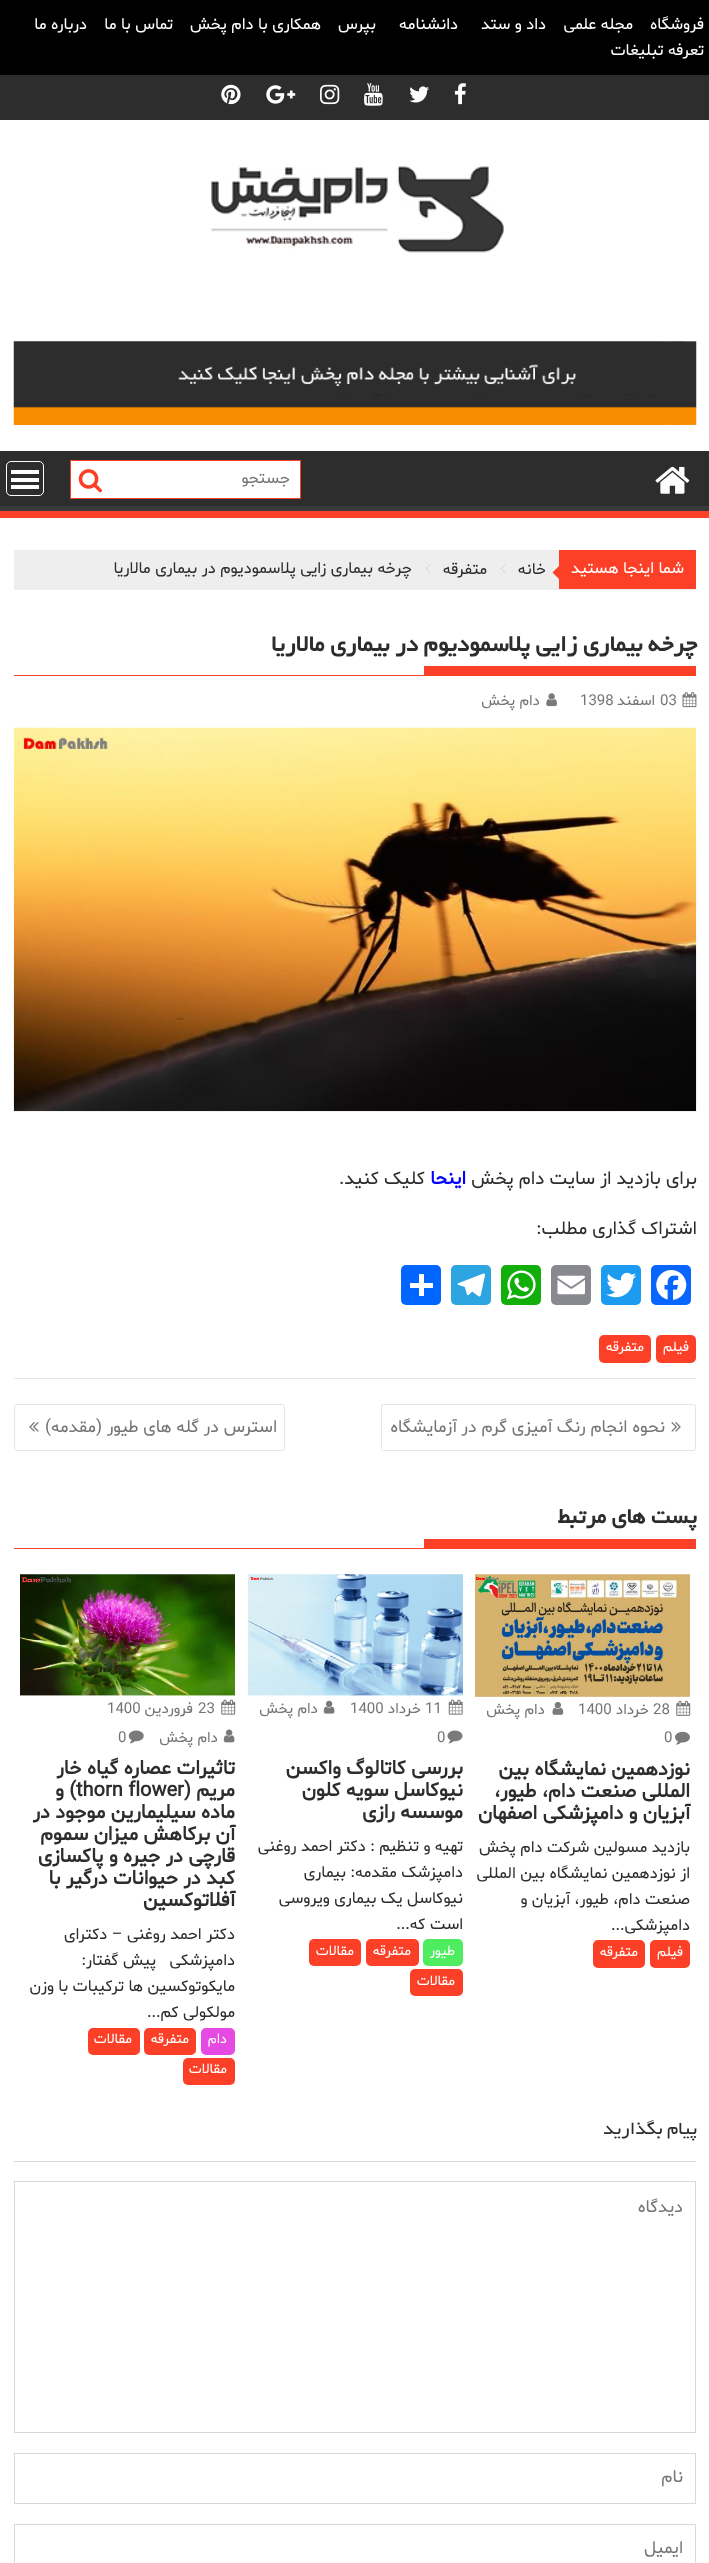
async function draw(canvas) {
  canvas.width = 709;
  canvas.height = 2563;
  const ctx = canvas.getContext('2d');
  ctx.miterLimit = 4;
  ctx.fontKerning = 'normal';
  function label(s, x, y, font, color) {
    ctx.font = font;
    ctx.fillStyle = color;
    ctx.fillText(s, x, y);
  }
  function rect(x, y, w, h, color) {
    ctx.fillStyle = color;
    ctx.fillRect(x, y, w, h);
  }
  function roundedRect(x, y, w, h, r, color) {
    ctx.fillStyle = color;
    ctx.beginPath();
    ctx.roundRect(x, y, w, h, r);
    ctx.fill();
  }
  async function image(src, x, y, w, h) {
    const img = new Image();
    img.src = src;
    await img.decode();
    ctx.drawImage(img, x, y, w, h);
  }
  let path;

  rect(0, 0, 709, 2563, '#fff');
  rect(0, 0, 709, 75, '#000');
  ctx.direction = 'rtl';
  label('فروشگاه', 704, 29, '16.25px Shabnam', '#fff');
  label('مجله علمی', 633, 29, '16.25px Shabnam', '#fff');
  label('داد و ستد', 546, 29, '16.25px Shabnam', '#fff');
  label('دانشنامه', 458, 29, '16.25px Shabnam', '#fff');
  label('بپرس', 376, 29, '16.25px Shabnam', '#fff');
  label('همکاری با دام پخش', 321, 29, '16.25px Shabnam', '#fff');
  label('تماس با ما', 173, 29, '16.25px Shabnam', '#fff');
  label('درباره ما', 87, 29, '16.25px Shabnam', '#fff');
  label('تعرفه تبلیغات', 704, 55, '16.25px Shabnam', '#fff');
  rect(0, 75, 709, 45, '#2d2d2d');
  await image('assets/img1.png', 454, 83, 12, 22);
  await image('assets/img2.png', 409, 86, 20, 17);
  await image('assets/img3.png', 364, 83, 19, 23);
  await image('assets/img4.png', 320, 84, 20, 21);
  await image('assets/img5.png', 266, 85, 30, 19);
  await image('assets/img6.png', 221, 84, 20, 21);
  await image('assets/img7.png', 211, 166, 293, 87);
  await image('assets/img8.png', 13, 341, 684, 84);
  rect(0, 451, 709, 55, '#2d2d2d');
  ctx.save();
  ctx.beginPath();
  ctx.rect(0, 451, 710, 60);
  ctx.clip();
  ctx.fillStyle = '#393939';
  path = new Path2D('M-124 328H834V635H-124ZM1 444H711C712 444 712 444 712 445V505C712 506 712 506 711 506H1C1 506 0 506 0 505V445C0 444 1 444 1 444Z');
  ctx.fill(path, 'evenodd');
  ctx.restore();
  rect(0, 511, 709, 7, '#fc4027');
  await image('assets/img9.png', 655, 466, 35, 28);
  ctx.fillStyle = '#fff';
  ctx.beginPath();
  ctx.rect(70.5, 460.5, 230, 38);
  ctx.fill();
  ctx.strokeStyle = '#fc4027';
  ctx.stroke();
  label('جستجو', 290, 483, '16.25px Shabnam', '#757575');
  await image('assets/img10.png', 78, 469, 24, 24);
  ctx.beginPath();
  ctx.roundRect(6.5, 461.5, 37, 34, 4.5);
  ctx.strokeStyle = '#fff';
  ctx.stroke();
  rect(11, 485, 28, 4, '#fff');
  rect(11, 478, 28, 4, '#fff');
  rect(11, 470, 28, 4, '#fff');
  rect(14, 550, 682, 40, '#eeeeef');
  rect(559, 550, 137, 39, '#fc4027');
  label('شما اینجا هستید', 684, 573, '16.25px Shabnam', '#fff');
  ctx.fillStyle = '#fc4027';
  path = new Path2D('M559 566V579L552.5 572.5Z');
  ctx.fill(path);
  label('خانه', 546, 574, '16.25px Shabnam', '#2d2d2d');
  await image('assets/img11.png', 500, 564, 6, 9);
  label('متفرقه', 487, 574, '16.25px Shabnam', '#2d2d2d');
  await image('assets/img11.png', 425, 564, 6, 9);
  label('چرخه بیماری زایی پلاسمودیوم در بیماری مالاریا', 412, 573, '16.25px Shabnam', '#2d2d2d');
  rect(14, 1378, 682, 1, '#e5e5e5');
  rect(14, 675, 682, 1, '#fc4027');
  label('چرخه بیماری زایی پلاسمودیوم در بیماری مالاریا', 697, 651, 'bold 25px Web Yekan', '#2d2d2d');
  rect(424, 666, 272, 9, '#fc4027');
  await image('assets/img12.png', 682, 692, 15, 16);
  ctx.direction = 'ltr';
  label('03', 660, 705, '15px Shabnam', '#757575');
  ctx.direction = 'rtl';
  label('اسفند', 655, 705, '15px Shabnam', '#757575');
  ctx.direction = 'ltr';
  label('1398', 580, 705, '15px Shabnam', '#757575');
  await image('assets/img13.png', 546, 693, 11, 14);
  ctx.direction = 'rtl';
  label('دام پخش', 540, 705, '15px Shabnam', '#757575');
  await image('assets/img14.png', 13, 727, 684, 385);
  label('برای بازدید از سایت دام پخش', 697, 1184, '18.75px Shabnam', '#2d2d2d');
  label('اینحا', 466, 1184, 'bold 18.75px Shabnam', '#00f');
  label('کلیک کنید.', 425, 1184, '18.75px Shabnam', '#2d2d2d');
  label('اشتراک گذاری مطلب:', 697, 1234, '18.75px Shabnam', '#2d2d2d');
  roundedRect(651, 1265, 40, 40, 5, '#0866ff');
  await image('assets/img15.png', 656, 1270, 31, 30);
  roundedRect(601, 1265, 40, 40, 5, '#1d9bf0');
  await image('assets/img16.png', 606, 1272, 31, 26);
  roundedRect(551, 1265, 40, 40, 5, '#888990');
  await image('assets/img17.png', 557, 1275, 28, 20);
  roundedRect(501, 1265, 40, 40, 5, '#12af0a');
  await image('assets/img18.png', 507, 1270, 29, 30);
  roundedRect(451, 1265, 40, 40, 5, '#2ca5e0');
  await image('assets/img19.png', 457, 1273, 28, 24);
  roundedRect(401, 1265, 40, 40, 5, '#0166ff');
  rect(419, 1274, 5, 22, '#fff');
  rect(410, 1283, 23, 5, '#fff');
  roundedRect(656, 1335, 40, 28, 5, '#fc4027');
  label('فیلم', 689, 1351, '14px Shabnam', '#fff');
  roundedRect(599, 1335, 52, 28, 5, '#fc4027');
  label('متفرقه', 644, 1351, '14px Shabnam', '#fff');
  ctx.beginPath();
  ctx.roundRect(381.5, 1404.5, 314, 46, 2);
  ctx.strokeStyle = '#e5e5e5';
  ctx.stroke();
  await image('assets/img20.png', 671, 1422, 10, 10);
  label('نحوه انجام رنگ آمیزی گرم در آزمایشگاه', 665, 1432, '17.5px Shabnam', '#757575');
  ctx.beginPath();
  ctx.roundRect(14.5, 1404.5, 270, 46, 2);
  ctx.stroke();
  label('استرس در گله های طیور (مقدمه)', 277, 1432, '17.5px Shabnam', '#757575');
  await image('assets/img21.png', 29, 1422, 10, 10);
  rect(14, 1548, 682, 1, '#fc4027');
  label('پست های مرتبط', 697, 1523, 'bold 23.75px Web Yekan', '#2d2d2d');
  rect(424, 1539, 272, 9, '#fc4027');
  await image('assets/img22.png', 475, 1574, 215, 123);
  await image('assets/img23.png', 676, 1700, 15, 16);
  ctx.direction = 'ltr';
  label('28', 653, 1714, '15px Shabnam', '#757575');
  ctx.direction = 'rtl';
  label('خرداد', 649, 1714, '15px Shabnam', '#757575');
  ctx.direction = 'ltr';
  label('1400', 578, 1714, '15px Shabnam', '#757575');
  await image('assets/img24.png', 552, 1702, 12, 13);
  ctx.direction = 'rtl';
  label('دام پخش', 545, 1714, '15px Shabnam', '#757575');
  await image('assets/img25.png', 675, 1731, 15, 14);
  ctx.direction = 'ltr';
  label('0', 664, 1742, '15px Shabnam', '#757575');
  ctx.direction = 'rtl';
  label('نوزدهمین نمایشگاه بین', 690, 1775, 'bold 20px Shabnam', '#2d2d2d');
  label('المللی صنعت دام، طیور،', 690, 1797, 'bold 20px Shabnam', '#2d2d2d');
  label('آبزیان و دامپزشکی اصفهان', 690, 1819, 'bold 20px Shabnam', '#2d2d2d');
  label('بازدید مسولین شرکت دام پخش', 690, 1852, '16.25px Shabnam', '#2d2d2d');
  label('از نوزدهمین نمایشگاه بین المللی', 690, 1878, '16.25px Shabnam', '#2d2d2d');
  label('صنعت دام، طیور، آبزیان و', 690, 1904, '16.25px Shabnam', '#2d2d2d');
  label('دامپزشکی...', 690, 1930, '16.25px Shabnam', '#2d2d2d');
  roundedRect(650, 1940, 40, 28, 5, '#fc4027');
  label('فیلم', 683, 1956, '14px Shabnam', '#fff');
  roundedRect(593, 1940, 52, 28, 5, '#fc4027');
  label('متفرقه', 638, 1956, '14px Shabnam', '#fff');
  await image('assets/img26.png', 248, 1574, 215, 122);
  await image('assets/img27.png', 448, 1699, 15, 16);
  ctx.direction = 'ltr';
  label('11', 425, 1713, '15px Shabnam', '#757575');
  ctx.direction = 'rtl';
  label('خرداد', 421, 1713, '15px Shabnam', '#757575');
  ctx.direction = 'ltr';
  label('1400', 350, 1713, '15px Shabnam', '#757575');
  await image('assets/img28.png', 323, 1700, 12, 14);
  ctx.direction = 'rtl';
  label('دام پخش', 318, 1713, '15px Shabnam', '#757575');
  await image('assets/img29.png', 447, 1730, 16, 14);
  ctx.direction = 'ltr';
  label('0', 437, 1742, '15px Shabnam', '#757575');
  ctx.direction = 'rtl';
  label('بررسی کاتالوگ واکسن', 463, 1774, 'bold 20px Shabnam', '#2d2d2d');
  label('نیوکاسل سویه کلون', 463, 1796, 'bold 20px Shabnam', '#2d2d2d');
  label('موسسه رازی', 463, 1818, 'bold 20px Shabnam', '#2d2d2d');
  label('تهیه و تنظیم : دکتر احمد روغنی', 463, 1851, '16.25px Shabnam', '#2d2d2d');
  label('دامپزشک مقدمه: بیماری', 463, 1877, '16.25px Shabnam', '#2d2d2d');
  label('نیوکاسل یک بیماری ویروسی', 463, 1903, '16.25px Shabnam', '#2d2d2d');
  label('است که...', 463, 1929, '16.25px Shabnam', '#2d2d2d');
  roundedRect(423, 1939, 40, 27, 5, '#4eed60');
  label('طیور', 455, 1955, '14px Shabnam', '#fff');
  roundedRect(366, 1939, 53, 27, 5, '#fc4027');
  label('متفرقه', 411, 1955, '14px Shabnam', '#fff');
  roundedRect(309, 1939, 52, 27, 5, '#fc4027');
  label('مقالات', 354, 1955, '14px Shabnam', '#fff');
  roundedRect(410, 1969, 53, 27, 5, '#fc4027');
  label('مقالات', 455, 1985, '14px Shabnam', '#fff');
  await image('assets/img30.png', 20, 1574, 215, 122);
  await image('assets/img31.png', 221, 1699, 15, 16);
  ctx.direction = 'ltr';
  label('23', 198, 1713, '15px Shabnam', '#757575');
  ctx.direction = 'rtl';
  label('فروردین', 193, 1713, '15px Shabnam', '#757575');
  ctx.direction = 'ltr';
  label('1400', 107, 1713, '15px Shabnam', '#757575');
  await image('assets/img32.png', 223, 1729, 12, 14);
  ctx.direction = 'rtl';
  label('دام پخش', 218, 1742, '15px Shabnam', '#757575');
  await image('assets/img33.png', 128, 1730, 16, 14);
  ctx.direction = 'ltr';
  label('0', 118, 1742, '15px Shabnam', '#757575');
  ctx.direction = 'rtl';
  label('تاثیرات عصاره گیاه خار', 235, 1774, 'bold 20px Shabnam', '#2d2d2d');
  label('مریم (', 235, 1796, 'bold 20px Shabnam', '#2d2d2d');
  ctx.direction = 'ltr';
  label('thorn flower', 76, 1796, 'bold 20px Shabnam', '#2d2d2d');
  ctx.direction = 'rtl';
  label(') و', 76, 1796, 'bold 20px Shabnam', '#2d2d2d');
  label('ماده سیلیمارین موجود در', 235, 1818, 'bold 20px Shabnam', '#2d2d2d');
  label('آن برکاهش میزان سموم', 235, 1840, 'bold 20px Shabnam', '#2d2d2d');
  label('قارچی در جیره و پاکسازی', 235, 1862, 'bold 20px Shabnam', '#2d2d2d');
  label('کبد در حیوانات درگیر با', 235, 1884, 'bold 20px Shabnam', '#2d2d2d');
  label('آفلاتوکسین', 235, 1906, 'bold 20px Shabnam', '#2d2d2d');
  label('دکتر احمد روغنی – دکترای', 235, 1939, '16.25px Shabnam', '#2d2d2d');
  label('دامپزشکی   پیش گفتار:', 235, 1965, '16.25px Shabnam', '#2d2d2d');
  label('مایکوتوکسین ها ترکیبات با وزن', 235, 1991, '16.25px Shabnam', '#2d2d2d');
  label('مولکولی کم...', 235, 2017, '16.25px Shabnam', '#2d2d2d');
  roundedRect(201, 2028, 34, 27, 5, '#e54be2');
  label('دام', 227, 2043, '14px Shabnam', '#fff');
  roundedRect(144, 2028, 52, 27, 5, '#fc4027');
  label('متفرقه', 189, 2043, '14px Shabnam', '#fff');
  roundedRect(88, 2028, 52, 27, 5, '#fc4027');
  label('مقالات', 132, 2043, '14px Shabnam', '#fff');
  roundedRect(183, 2058, 52, 27, 5, '#fc4027');
  label('مقالات', 227, 2073, '14px Shabnam', '#fff');
  rect(14, 2161, 682, 1, '#d9d9d9');
  label('پیام بگذارید', 697, 2134, '20px Web Yekan', '#2d2d2d');
  ctx.strokeStyle = '#d9d9d9';
  ctx.strokeRect(14.5, 2181.5, 681, 251);
  label('دیدگاه', 683, 2212, '17.5px Shabnam', '#757575');
  ctx.strokeRect(14.5, 2453.5, 681, 50);
  label('نام', 683, 2482, '17.5px Shabnam', '#757575');
  ctx.strokeRect(14.5, 2524.5, 681, 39);
  label('ایمیل', 683, 2553, '17.5px Shabnam', '#757575');
}

draw(document.querySelector('canvas'));
